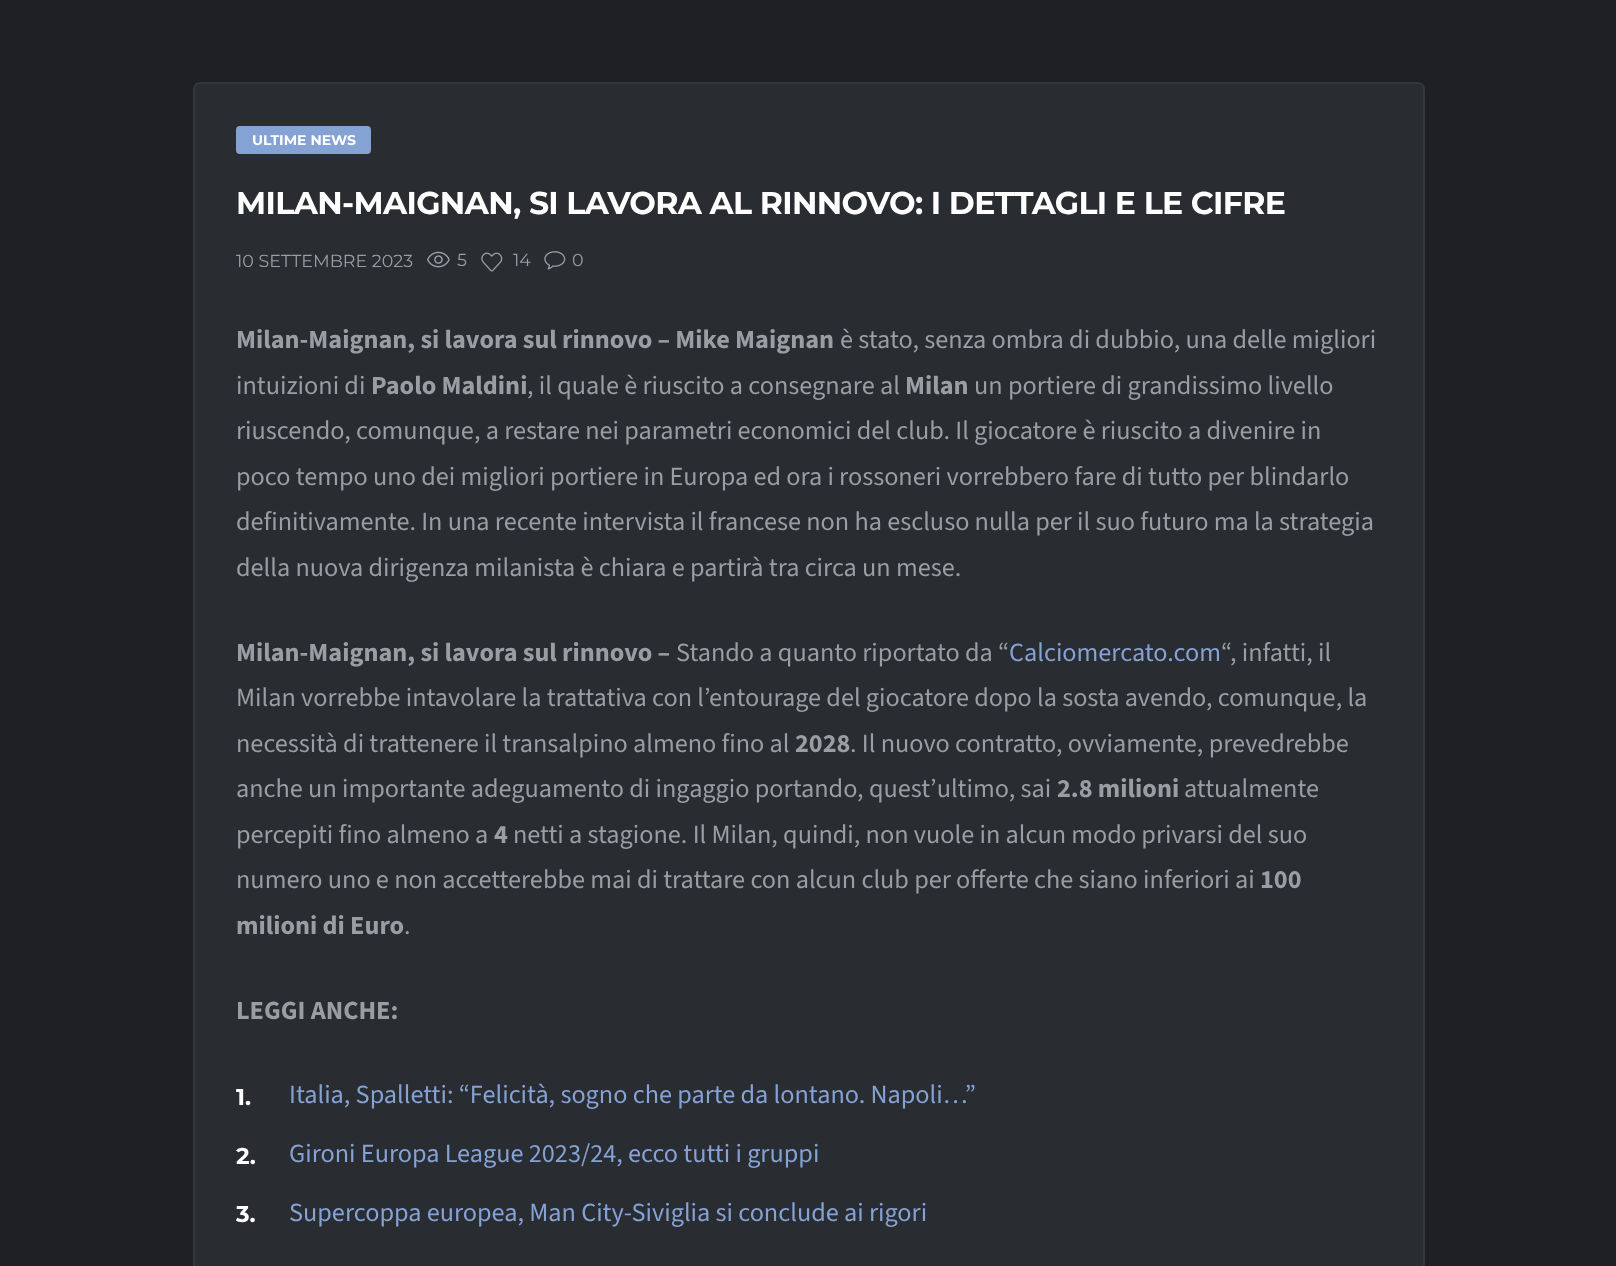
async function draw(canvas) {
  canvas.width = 1616;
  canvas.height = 1266;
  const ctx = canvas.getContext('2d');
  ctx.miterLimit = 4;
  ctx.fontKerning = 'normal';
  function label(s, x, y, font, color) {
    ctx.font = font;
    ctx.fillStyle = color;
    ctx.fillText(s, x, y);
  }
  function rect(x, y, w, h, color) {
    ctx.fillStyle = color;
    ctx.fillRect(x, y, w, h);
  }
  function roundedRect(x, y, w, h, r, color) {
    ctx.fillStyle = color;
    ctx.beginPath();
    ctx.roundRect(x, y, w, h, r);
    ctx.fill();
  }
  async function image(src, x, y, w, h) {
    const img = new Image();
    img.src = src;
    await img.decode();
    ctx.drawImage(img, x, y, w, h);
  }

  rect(0, 0, 1616, 1266, '#1e2024');
  ctx.fillStyle = '#292c31';
  ctx.beginPath();
  ctx.roundRect(194, 83, 1230, 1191, 6);
  ctx.fill();
  ctx.strokeStyle = '#34373c';
  ctx.lineWidth = 2;
  ctx.stroke();
  roundedRect(236, 126, 135, 28, 4, '#85a2d5');
  label('ULTIME NEWS', 252, 145, 'bold 14px Montserrat', '#fff');
  ctx.letterSpacing = '-0.63px';
  label('MILAN-MAIGNAN, SI LAVORA AL RINNOVO: I DETTAGLI E LE CIFRE', 236, 214, 'bold 31.5px Montserrat', '#fff');
  ctx.letterSpacing = '0px';
  label('10 SETTEMBRE 2023', 236, 267, '100 17.5px Montserrat', '#9a9da2');
  await image('assets/img1.png', 427, 251, 23, 17);
  label('5', 457, 266, '100 17.5px Montserrat', '#9a9da2');
  await image('assets/img2.png', 481, 252, 22, 20);
  label('14', 513, 266, '100 17.5px Montserrat', '#9a9da2');
  await image('assets/img3.png', 544, 251, 22, 19);
  label('0', 572, 266, '100 17.5px Montserrat', '#9a9da2');
  label('Milan-Maignan, si lavora sul rinnovo – Mike Maignan', 236, 348, 'bold 26.25px "Source Sans 3"', '#9a9da2');
  label('è stato, senza ombra di dubbio, una delle migliori', 840, 348, '26.25px "Source Sans 3"', '#9a9da2');
  label('intuizioni di', 236, 394, '26.25px "Source Sans 3"', '#9a9da2');
  label('Paolo Maldini', 371, 394, 'bold 26.25px "Source Sans 3"', '#9a9da2');
  label(', il quale è riuscito a consegnare al', 527, 394, '26.25px "Source Sans 3"', '#9a9da2');
  label('Milan', 905, 394, 'bold 26.25px "Source Sans 3"', '#9a9da2');
  label('un portiere di grandissimo livello', 974, 394, '26.25px "Source Sans 3"', '#9a9da2');
  label('riuscendo, comunque, a restare nei parametri economici del club. Il giocatore è riuscito a divenire in', 236, 439, '26.25px "Source Sans 3"', '#9a9da2');
  label('poco tempo uno dei migliori portiere in Europa ed ora i rossoneri vorrebbero fare di tutto per blindarlo', 236, 485, '26.25px "Source Sans 3"', '#9a9da2');
  label('definitivamente. In una recente intervista il francese non ha escluso nulla per il suo futuro ma la strategia', 236, 530, '26.25px "Source Sans 3"', '#9a9da2');
  label('della nuova dirigenza milanista è chiara e partirà tra circa un mese.', 236, 576, '26.25px "Source Sans 3"', '#9a9da2');
  label('Milan-Maignan, si lavora sul rinnovo –', 236, 661, 'bold 26.25px "Source Sans 3"', '#9a9da2');
  label('Stando a quanto riportato da “', 676, 661, '26.25px "Source Sans 3"', '#9a9da2');
  label('Calciomercato.com', 1009, 661, '26.25px "Source Sans 3"', '#85a2d5');
  label('“, infatti, il', 1221, 661, '26.25px "Source Sans 3"', '#9a9da2');
  label('Milan vorrebbe intavolare la trattativa con l’entourage del giocatore dopo la sosta avendo, comunque, la', 236, 706, '26.25px "Source Sans 3"', '#9a9da2');
  label('necessità di trattenere il transalpino almeno fino al', 236, 752, '26.25px "Source Sans 3"', '#9a9da2');
  label('2028', 795, 752, 'bold 26.25px "Source Sans 3"', '#9a9da2');
  label('. Il nuovo contratto, ovviamente, prevedrebbe', 850, 752, '26.25px "Source Sans 3"', '#9a9da2');
  label('anche un importante adeguamento di ingaggio portando, quest’ultimo, sai', 236, 797, '26.25px "Source Sans 3"', '#9a9da2');
  label('2.8 milioni', 1057, 797, 'bold 26.25px "Source Sans 3"', '#9a9da2');
  label('attualmente', 1184, 797, '26.25px "Source Sans 3"', '#9a9da2');
  label('percepiti fino almeno a', 236, 843, '26.25px "Source Sans 3"', '#9a9da2');
  label('4', 494, 843, 'bold 26.25px "Source Sans 3"', '#9a9da2');
  label('netti a stagione. Il Milan, quindi, non vuole in alcun modo privarsi del suo', 513, 843, '26.25px "Source Sans 3"', '#9a9da2');
  label('numero uno e non accetterebbe mai di trattare con alcun club per offerte che siano inferiori ai', 236, 888, '26.25px "Source Sans 3"', '#9a9da2');
  label('100', 1260, 888, 'bold 26.25px "Source Sans 3"', '#9a9da2');
  label('milioni di Euro', 236, 934, 'bold 26.25px "Source Sans 3"', '#9a9da2');
  label('.', 404, 934, '26.25px "Source Sans 3"', '#9a9da2');
  label('LEGGI ANCHE:', 236, 1019, 'bold 26.25px "Source Sans 3"', '#9a9da2');
  label('1.', 236, 1105, 'bold 23px Montserrat', '#fff');
  label('Italia, Spalletti: “Felicità, sogno che parte da lontano. Napoli…”', 289, 1103, '26.25px "Source Sans 3"', '#85a2d5');
  label('2.', 236, 1164, 'bold 23px Montserrat', '#fff');
  label('Gironi Europa League 2023/24, ecco tutti i gruppi', 289, 1162, '26.25px "Source Sans 3"', '#85a2d5');
  label('3.', 236, 1222, 'bold 23px Montserrat', '#fff');
  label('Supercoppa europea, Man City-Siviglia si conclude ai rigori', 289, 1221, '26.25px "Source Sans 3"', '#85a2d5');
}

draw(document.querySelector('canvas'));
